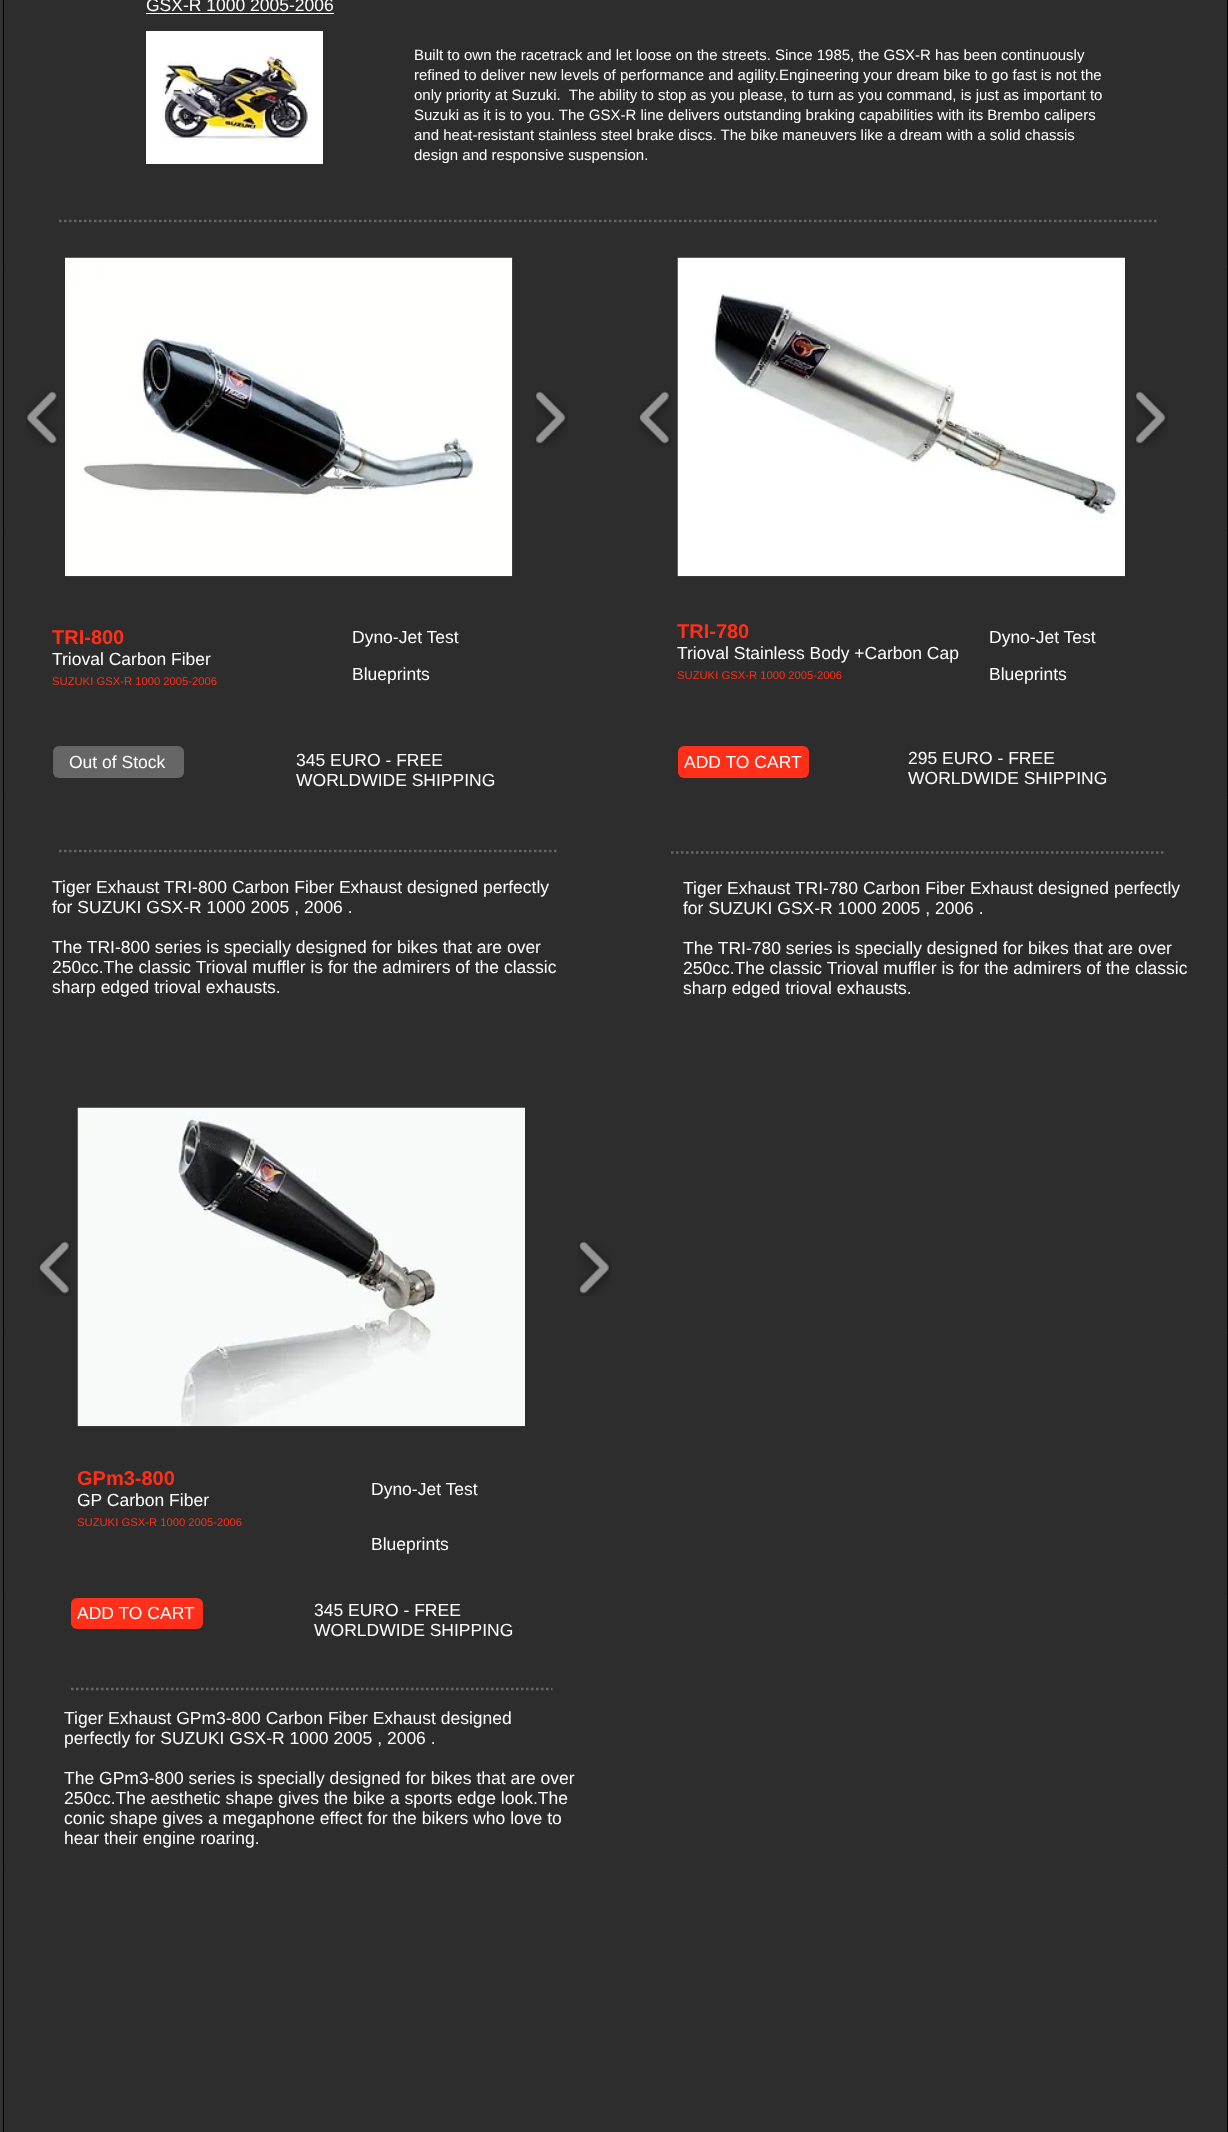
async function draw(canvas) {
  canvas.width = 1228;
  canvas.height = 2132;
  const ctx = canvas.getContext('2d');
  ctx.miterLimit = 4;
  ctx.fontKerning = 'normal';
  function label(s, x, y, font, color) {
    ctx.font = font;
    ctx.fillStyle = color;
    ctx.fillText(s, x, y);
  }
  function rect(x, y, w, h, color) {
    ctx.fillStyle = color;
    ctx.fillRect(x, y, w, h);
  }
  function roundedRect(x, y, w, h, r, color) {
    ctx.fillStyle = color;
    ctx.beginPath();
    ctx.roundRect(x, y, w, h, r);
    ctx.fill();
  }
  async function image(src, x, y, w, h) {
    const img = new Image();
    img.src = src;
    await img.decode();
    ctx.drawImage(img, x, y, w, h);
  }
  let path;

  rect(0, 0, 1228, 2132, '#333');
  ctx.fillStyle = '#2d2d2d';
  ctx.beginPath();
  ctx.rect(3.5, -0.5, 1224, 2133);
  ctx.fill();
  ctx.strokeStyle = '#000';
  ctx.stroke();
  label('GSX-R 1000 2005-2006', 146, 11, '17.5px Liberation Sans', '#fff');
  rect(146, 13, 188, 1, '#fff');
  rect(146, 31, 177, 133, '#fff');
  await image('assets/img1.png', 162, 56, 149, 86);
  label('Built to own the racetrack and let loose on the streets. Since 1985, the GSX-R has been continuously', 414, 60, '15px Liberation Sans', '#fff');
  label('refined to deliver new levels of performance and agility.Engineering your dream bike to go fast is not the', 414, 80, '15px Liberation Sans', '#fff');
  label('only priority at Suzuki.  The ability to stop as you please, to turn as you command, is just as important to', 414, 100, '15px Liberation Sans', '#fff');
  label('Suzuki as it is to you. The GSX-R line delivers outstanding braking capabilities with its Brembo calipers', 414, 120, '15px Liberation Sans', '#fff');
  label('and heat-resistant stainless steel brake discs. The bike maneuvers like a dream with a solid chassis', 414, 140, '15px Liberation Sans', '#fff');
  label('design and responsive suspension.', 414, 160, '15px Liberation Sans', '#fff');
  path = new Path2D('M59 221H1159');
  ctx.strokeStyle = '#666';
  ctx.lineWidth = 2.5;
  ctx.setLineDash([2.5, 2.5]);
  ctx.stroke(path);
  await image('assets/img2.png', 26, 391, 32, 55);
  rect(512, 258, 1, 318, '#000');
  await image('assets/img3.png', 65, 257, 448, 320);
  await image('assets/img4.png', 535, 391, 33, 55);
  await image('assets/img5.png', 638, 391, 33, 55);
  await image('assets/img6.png', 677, 257, 448, 320);
  await image('assets/img4.png', 1135, 391, 33, 55);
  label('TRI-800', 52, 644, 'bold 20px Liberation Sans', '#ff2f19');
  label('Trioval Carbon Fiber', 52, 665, '17.5px Liberation Sans', '#fff');
  label('SUZUKI GSX-R 1000 2005-2006', 52, 685, '11.25px Liberation Sans', '#ff2f19');
  label('Dyno-Jet Test', 352, 643, '17.5px Liberation Sans', '#fff');
  label('TRI-780', 677, 638, 'bold 20px Liberation Sans', '#ff2f19');
  label('Trioval Stainless Body +Carbon Cap', 677, 659, '17.5px Liberation Sans', '#fff');
  label('SUZUKI GSX-R 1000 2005-2006', 677, 679, '11.25px Liberation Sans', '#ff2f19');
  label('Dyno-Jet Test', 989, 643, '17.5px Liberation Sans', '#fff');
  label('Blueprints', 352, 680, '17.5px Liberation Sans', '#fff');
  label('Blueprints', 989, 680, '17.5px Liberation Sans', '#fff');
  roundedRect(53, 746, 131, 32, 6, '#666');
  label('Out of Stock', 69, 768, '17.5px Liberation Sans', '#fff');
  label('345 EURO - FREE', 296, 766, '17.5px Liberation Sans', '#fff');
  label('WORLDWIDE SHIPPING', 296, 786, '17.5px Liberation Sans', '#fff');
  roundedRect(678, 746, 131, 32, 6, '#ff2f19');
  label('ADD TO CART', 684, 768, '17.5px Liberation Sans', '#fff');
  label('295 EURO - FREE', 908, 764, '17.5px Liberation Sans', '#fff');
  label('WORLDWIDE SHIPPING', 908, 784, '17.5px Liberation Sans', '#fff');
  path = new Path2D('M59 851H559');
  ctx.stroke(path);
  path = new Path2D('M671 852.5H1165');
  ctx.stroke(path);
  label('Tiger Exhaust TRI-800 Carbon Fiber Exhaust designed perfectly', 52, 893, '17.5px Liberation Sans', '#fff');
  label('for SUZUKI GSX-R 1000 2005 , 2006 .', 52, 913, '17.5px Liberation Sans', '#fff');
  label('The TRI-800 series is specially designed for bikes that are over', 52, 953, '17.5px Liberation Sans', '#fff');
  label('250cc.The classic Trioval muffler is for the admirers of the classic', 52, 973, '17.5px Liberation Sans', '#fff');
  label('sharp edged trioval exhausts.', 52, 993, '17.5px Liberation Sans', '#fff');
  label('Tiger Exhaust TRI-780 Carbon Fiber Exhaust designed perfectly', 683, 894, '17.5px Liberation Sans', '#fff');
  label('for SUZUKI GSX-R 1000 2005 , 2006 .', 683, 914, '17.5px Liberation Sans', '#fff');
  label('The TRI-780 series is specially designed for bikes that are over', 683, 954, '17.5px Liberation Sans', '#fff');
  label('250cc.The classic Trioval muffler is for the admirers of the classic', 683, 974, '17.5px Liberation Sans', '#fff');
  label('sharp edged trioval exhausts.', 683, 994, '17.5px Liberation Sans', '#fff');
  await image('assets/img5.png', 38, 1241, 33, 55);
  await image('assets/img7.png', 77, 1107, 448, 320);
  await image('assets/img8.png', 578, 1241, 34, 55);
  label('GPm3-800', 77, 1485, 'bold 20px Liberation Sans', '#ff2f19');
  label('GP Carbon Fiber', 77, 1506, '17.5px Liberation Sans', '#fff');
  label('SUZUKI GSX-R 1000 2005-2006', 77, 1526, '11.25px Liberation Sans', '#ff2f19');
  label('Dyno-Jet Test', 371, 1495, '17.5px Liberation Sans', '#fff');
  label('Blueprints', 371, 1550, '17.5px Liberation Sans', '#fff');
  roundedRect(71, 1598, 132, 31, 6, '#ff2f19');
  label('ADD TO CART', 77, 1619, '17.5px Liberation Sans', '#fff');
  label('345 EURO - FREE', 314, 1616, '17.5px Liberation Sans', '#fff');
  label('WORLDWIDE SHIPPING', 314, 1636, '17.5px Liberation Sans', '#fff');
  path = new Path2D('M71 1689H552.5');
  ctx.stroke(path);
  label('Tiger Exhaust GPm3-800 Carbon Fiber Exhaust designed', 64, 1724, '17.5px Liberation Sans', '#fff');
  label('perfectly for SUZUKI GSX-R 1000 2005 , 2006 .', 64, 1744, '17.5px Liberation Sans', '#fff');
  label('The GPm3-800 series is specially designed for bikes that are over', 64, 1784, '17.5px Liberation Sans', '#fff');
  label('250cc.The aesthetic shape gives the bike a sports edge look.The', 64, 1804, '17.5px Liberation Sans', '#fff');
  label('conic shape gives a megaphone effect for the bikers who love to', 64, 1824, '17.5px Liberation Sans', '#fff');
  label('hear their engine roaring.', 64, 1844, '17.5px Liberation Sans', '#fff');
}

draw(document.querySelector('canvas'));
